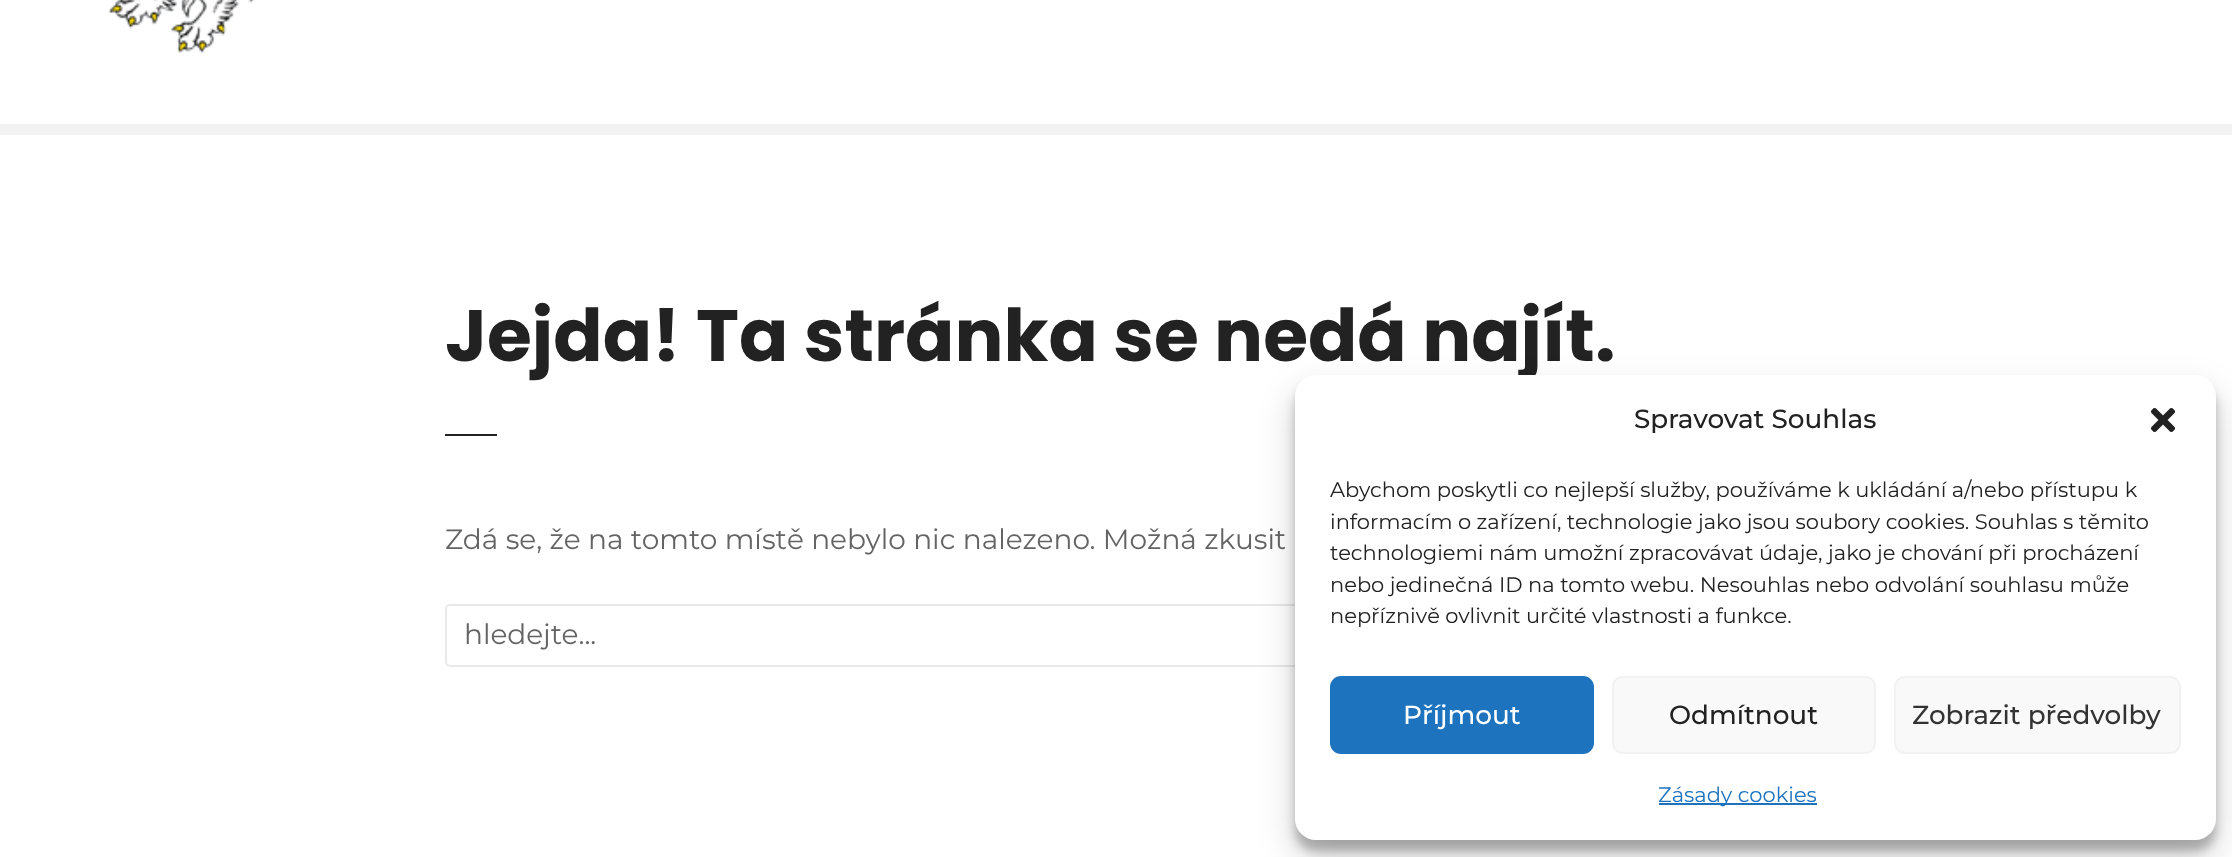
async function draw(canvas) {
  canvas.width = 2232;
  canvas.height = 857;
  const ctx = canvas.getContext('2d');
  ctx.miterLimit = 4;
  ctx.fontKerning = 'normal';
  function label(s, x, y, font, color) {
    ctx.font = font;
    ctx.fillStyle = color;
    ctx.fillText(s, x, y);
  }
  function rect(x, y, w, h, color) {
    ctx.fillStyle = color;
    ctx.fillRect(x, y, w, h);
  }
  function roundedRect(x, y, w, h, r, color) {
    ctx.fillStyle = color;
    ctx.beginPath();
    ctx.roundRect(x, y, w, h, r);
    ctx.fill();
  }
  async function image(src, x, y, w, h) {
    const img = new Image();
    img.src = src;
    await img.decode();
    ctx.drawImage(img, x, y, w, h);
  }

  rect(0, 0, 2232, 857, '#fff');
  await image('assets/img1.png', 108, 0, 146, 54);
  rect(0, 124, 2232, 11, '#f2f2f2');
  label('Jejda! Ta stránka se nedá najít.', 445, 361, 'bold 72.75px Poppins', '#222');
  rect(445, 434, 52, 2, '#222');
  label('Zdá se, že na tomto místě nebylo nic nalezeno. Možná zkusit', 445, 549, '28px Montserrat', '#646464');
  ctx.beginPath();
  ctx.roundRect(446, 605, 1196, 61, 4);
  ctx.strokeStyle = '#e9e9e9';
  ctx.lineWidth = 2;
  ctx.stroke();
  label('hledejte...', 464, 644, '28px Montserrat', '#646464');
  ctx.fillStyle = '#0000003b';
  ctx.filter = 'blur(5px)';
  ctx.beginPath();
  ctx.roundRect(1295, 385, 921, 466, 21);
  ctx.fill();
  ctx.filter = 'none';
  ctx.fillStyle = '#00000030';
  ctx.filter = 'blur(17.5px)';
  ctx.beginPath();
  ctx.roundRect(1295, 392, 921, 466, 21);
  ctx.fill();
  ctx.filter = 'none';
  roundedRect(1295, 375, 921, 465, 21, '#fff');
  label('Spravovat Souhlas', 1634, 428, '500 26.25px Montserrat', '#222');
  await image('assets/img2.png', 2151, 408, 24, 24);
  label('Abychom poskytli co nejlepší služby, používáme k ukládání a/nebo přístupu k', 1330, 497, '21px Montserrat', '#222');
  label('informacím o zařízení, technologie jako jsou soubory cookies. Souhlas s těmito', 1330, 529, '21px Montserrat', '#222');
  label('technologiemi nám umožní zpracovávat údaje, jako je chování při procházení', 1330, 560, '21px Montserrat', '#222');
  label('nebo jedinečná ID na tomto webu. Nesouhlas nebo odvolání souhlasu může', 1330, 592, '21px Montserrat', '#222');
  label('nepříznivě ovlivnit určité vlastnosti a funkce.', 1330, 623, '21px Montserrat', '#222');
  ctx.fillStyle = '#1e73be';
  ctx.beginPath();
  ctx.roundRect(1331, 677, 262, 76, 10);
  ctx.fill();
  ctx.strokeStyle = '#1e73be';
  ctx.stroke();
  label('Příjmout', 1403, 724, '500 26.25px Montserrat', '#fff');
  ctx.fillStyle = '#f9f9f9';
  ctx.beginPath();
  ctx.roundRect(1613, 677, 262, 76, 10);
  ctx.fill();
  ctx.strokeStyle = '#f2f2f2';
  ctx.stroke();
  label('Odmítnout', 1669, 724, '500 26.25px Montserrat', '#222');
  ctx.fillStyle = '#f9f9f9';
  ctx.beginPath();
  ctx.roundRect(1895, 677, 285, 76, 10);
  ctx.fill();
  ctx.stroke();
  label('Zobrazit předvolby', 1912, 724, '500 26.25px Montserrat', '#333');
  rect(1659, 803, 158, 2, '#1e73be');
  label('Zásady cookies', 1658, 802, '21px Montserrat', '#1e73be');
}

draw(document.querySelector('canvas'));
